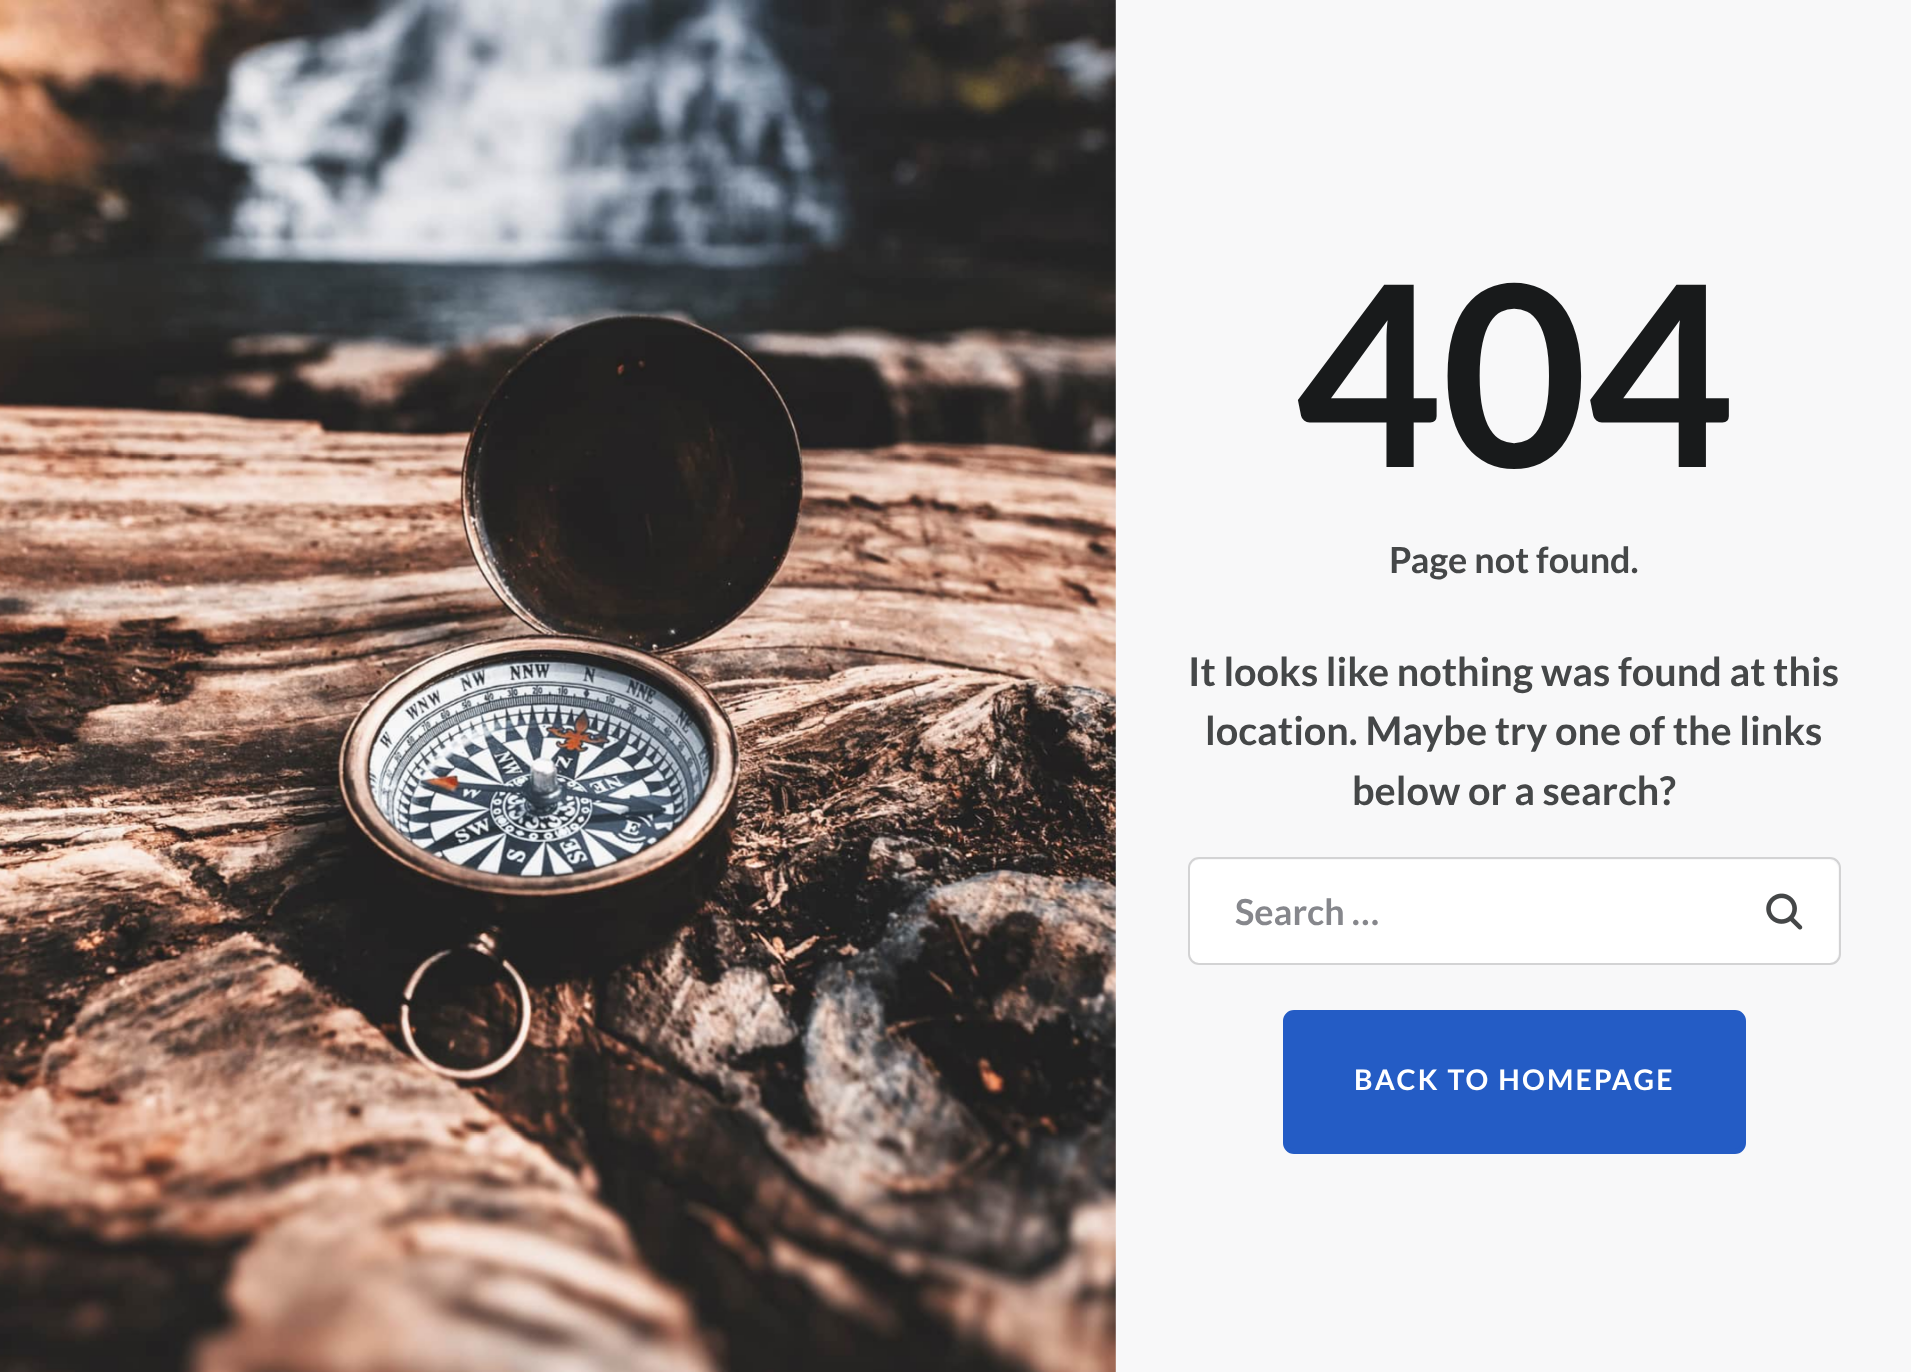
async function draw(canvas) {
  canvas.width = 1911;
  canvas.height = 1372;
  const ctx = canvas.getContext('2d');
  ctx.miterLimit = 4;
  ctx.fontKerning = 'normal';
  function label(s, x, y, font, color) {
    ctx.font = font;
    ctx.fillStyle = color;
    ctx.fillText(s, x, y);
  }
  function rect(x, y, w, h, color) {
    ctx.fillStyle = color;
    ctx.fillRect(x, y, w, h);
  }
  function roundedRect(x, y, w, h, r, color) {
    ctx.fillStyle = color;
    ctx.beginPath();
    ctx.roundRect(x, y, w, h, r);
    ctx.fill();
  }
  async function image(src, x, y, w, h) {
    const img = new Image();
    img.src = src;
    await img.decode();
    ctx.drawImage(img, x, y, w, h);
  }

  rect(0, 0, 1911, 1372, '#f8f8f9');
  await image('assets/img1.png', 0, 0, 1116, 1372);
  label('404', 1295, 467, 'bold 252px Lato', '#181a1b');
  label('Page not found.', 1389, 573, 'bold 36px Lato', '#454748');
  label('It looks like nothing was found at this', 1188, 686, 'bold 39.6px Lato', '#454748');
  label('location. Maybe try one of the links', 1205, 745, 'bold 39.6px Lato', '#454748');
  label('below or a search?', 1352, 805, 'bold 39.6px Lato', '#454748');
  roundedRect(1190, 860, 648, 103, 9, '#fff');
  ctx.beginPath();
  ctx.roundRect(1189, 858, 651, 106, 10);
  ctx.strokeStyle = '#d3d3d4';
  ctx.lineWidth = 2;
  ctx.stroke();
  label('Search …', 1235, 925, 'bold 36px Lato', '#86878c');
  await image('assets/img2.png', 1766, 893, 37, 37);
  ctx.fillStyle = '#245cc5';
  ctx.beginPath();
  ctx.roundRect(1285.5, 1012.5, 458, 139, 8.5);
  ctx.fill();
  ctx.strokeStyle = '#245cc5';
  ctx.lineWidth = 5;
  ctx.stroke();
  ctx.letterSpacing = '2.25px';
  label('BACK TO HOMEPAGE', 1354, 1090, 'bold 28.4px Lato', '#fff');
}

draw(document.querySelector('canvas'));
